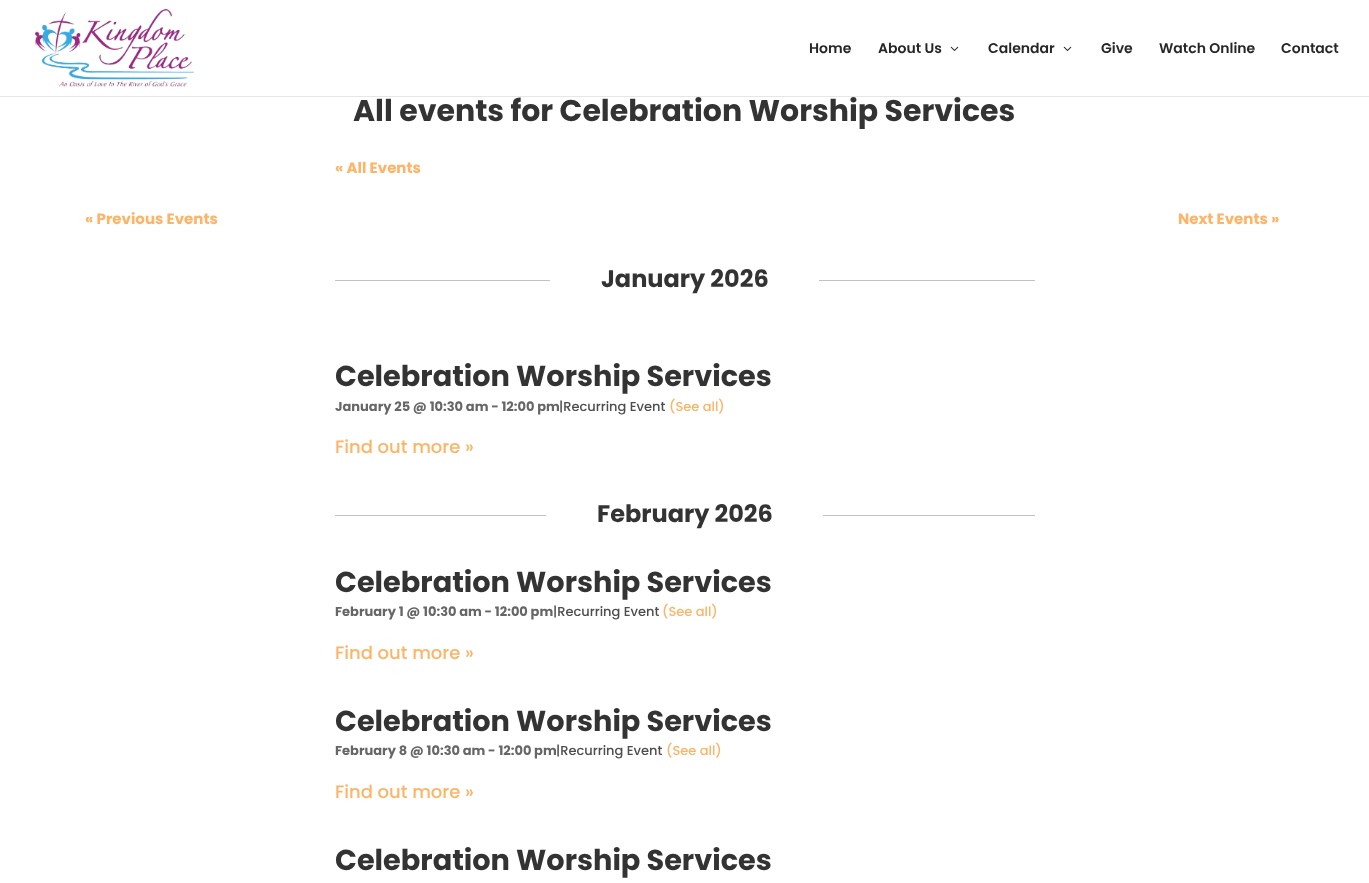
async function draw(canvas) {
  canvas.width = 1369;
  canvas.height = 883;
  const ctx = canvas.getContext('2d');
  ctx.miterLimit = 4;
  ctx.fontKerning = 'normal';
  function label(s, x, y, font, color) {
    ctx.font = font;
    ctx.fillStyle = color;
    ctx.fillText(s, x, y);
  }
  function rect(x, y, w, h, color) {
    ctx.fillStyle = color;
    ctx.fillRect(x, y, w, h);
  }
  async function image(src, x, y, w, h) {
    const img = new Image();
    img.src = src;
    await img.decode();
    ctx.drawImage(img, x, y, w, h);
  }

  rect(0, 0, 1369, 883, '#fff');
  rect(0, 96, 1369, 1, '#e6e6e6');
  await image('assets/img1.png', 35, 9, 159, 78);
  label('Home', 809, 53, '600 14px Poppins', '#282624');
  label('About Us', 878, 53, '600 14px Poppins', '#282624');
  await image('assets/img2.png', 950, 46, 9, 5);
  label('Calendar', 988, 53, '600 14px Poppins', '#282624');
  await image('assets/img2.png', 1063, 46, 9, 5);
  label('Give', 1101, 53, '600 14px Poppins', '#282624');
  label('Watch Online', 1159, 53, '600 14px Poppins', '#282624');
  label('Contact', 1281, 53, '600 14px Poppins', '#282624');
  label('All events for Celebration Worship Services', 353, 121, 'bold 30px Poppins', '#333');
  label('« All Events', 335, 173, 'bold 15px Poppins', '#fdb467');
  label('« Previous Events', 85, 224, 'bold 15px Poppins', '#fdb467');
  label('Next Events »', 1178, 224, 'bold 15px Poppins', '#fdb467');
  rect(335, 280, 700, 1, '#c2c2c2');
  rect(550, 280, 269, 1, '#fff');
  label('January 2026', 601, 287, 'bold 24px Poppins', '#333');
  label('Celebration Worship Services', 335, 386, 'bold 28.75px Poppins', '#333');
  label('January 25 @ 10:30 am - 12:00 pm', 335, 411, 'bold 13px Poppins', '#666');
  label('|Recurring Event', 559, 411, '500 13px Poppins', '#4d4d4d');
  label('(See all)', 669, 411, '500 13px Poppins', '#fdb467');
  label('Find out more »', 335, 453, '500 18px Poppins', '#fdb467');
  rect(335, 515, 700, 1, '#c2c2c2');
  rect(546, 515, 277, 1, '#fff');
  label('February 2026', 597, 522, 'bold 24px Poppins', '#333');
  label('Celebration Worship Services', 335, 592, 'bold 28.75px Poppins', '#333');
  label('February 1 @ 10:30 am - 12:00 pm', 335, 616, 'bold 13px Poppins', '#666');
  label('|Recurring Event', 553, 616, '500 13px Poppins', '#4d4d4d');
  label('(See all)', 662, 616, '500 13px Poppins', '#fdb467');
  label('Find out more »', 335, 659, '500 18px Poppins', '#fdb467');
  label('Celebration Worship Services', 335, 731, 'bold 28.75px Poppins', '#333');
  label('February 8 @ 10:30 am - 12:00 pm', 335, 755, 'bold 13px Poppins', '#666');
  label('|Recurring Event', 556, 755, '500 13px Poppins', '#4d4d4d');
  label('(See all)', 666, 755, '500 13px Poppins', '#fdb467');
  label('Find out more »', 335, 798, '500 18px Poppins', '#fdb467');
  label('Celebration Worship Services', 335, 870, 'bold 28.75px Poppins', '#333');
}

draw(document.querySelector('canvas'));
